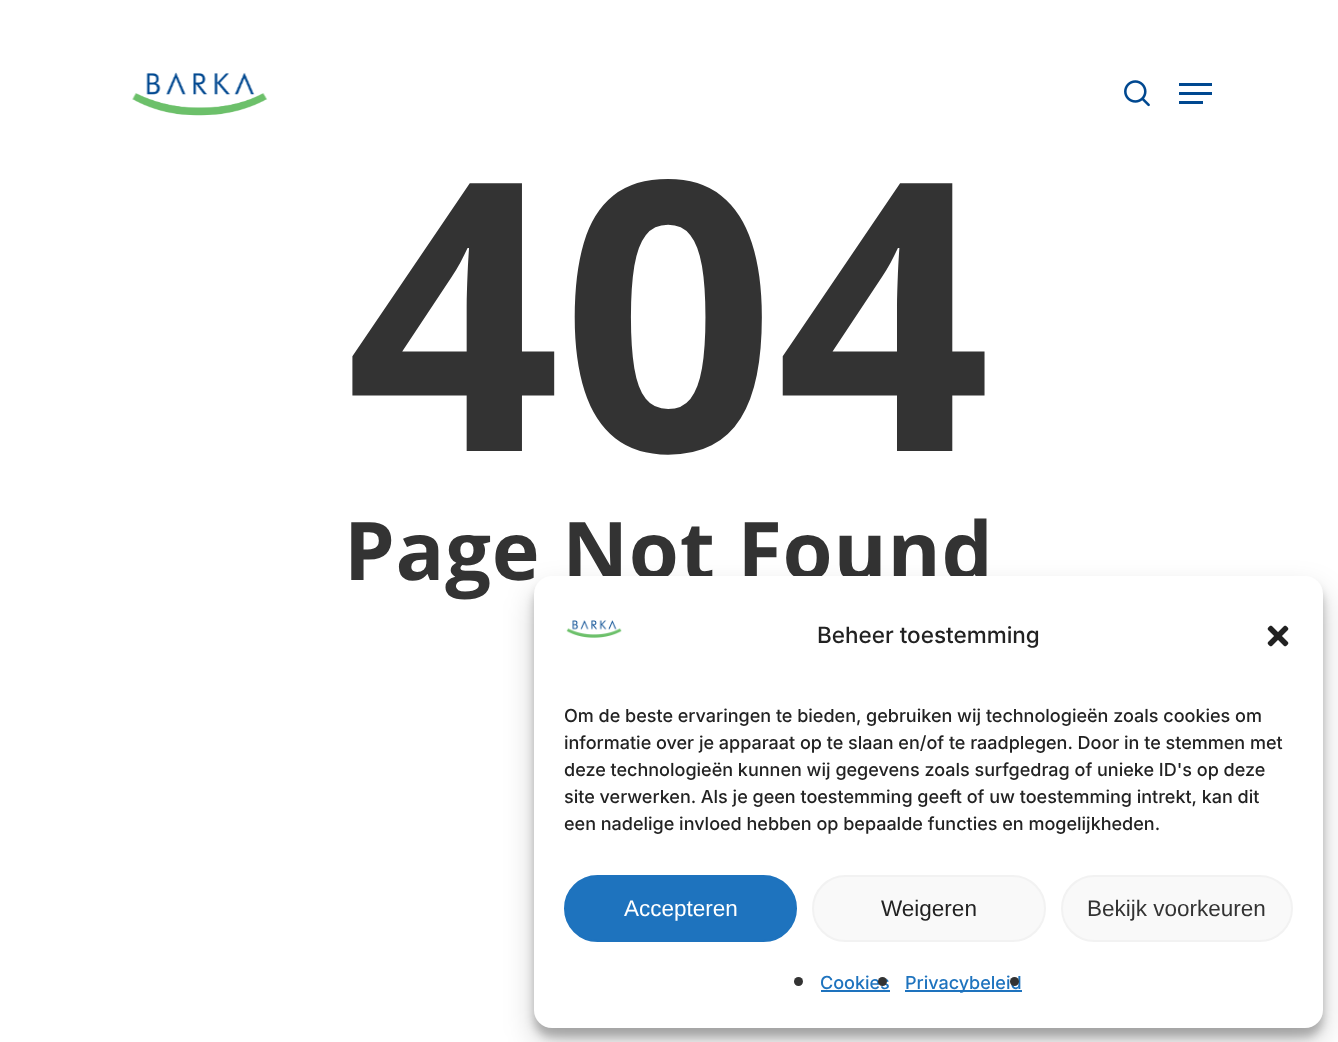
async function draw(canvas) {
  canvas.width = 1338;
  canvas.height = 1042;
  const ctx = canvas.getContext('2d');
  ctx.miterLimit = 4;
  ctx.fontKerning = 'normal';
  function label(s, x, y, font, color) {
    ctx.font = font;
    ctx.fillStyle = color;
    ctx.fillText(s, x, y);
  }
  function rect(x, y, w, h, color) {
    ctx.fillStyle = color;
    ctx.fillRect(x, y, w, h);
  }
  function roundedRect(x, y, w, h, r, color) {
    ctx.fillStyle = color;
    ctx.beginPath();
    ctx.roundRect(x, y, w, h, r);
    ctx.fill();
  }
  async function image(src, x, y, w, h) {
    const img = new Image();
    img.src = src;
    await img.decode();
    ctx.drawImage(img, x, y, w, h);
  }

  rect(0, 0, 1338, 1042, '#fff');
  await image('assets/img1.png', 132, 72, 136, 44);
  await image('assets/img2.png', 1124, 80, 26, 27);
  rect(1179, 83, 33, 3, '#004890');
  rect(1179, 101, 24, 3, '#004890');
  rect(1179, 92, 33, 3, '#004890');
  ctx.letterSpacing = '0.75px';
  label('404', 346, 451, 'bold 375px Open Sans', '#333');
  label('Page Not Found', 344, 580, 'bold 81px Open Sans', '#333');
  ctx.fillStyle = '#0000003b';
  ctx.filter = 'blur(4.5px)';
  ctx.beginPath();
  ctx.roundRect(534, 585, 789, 452, 18);
  ctx.fill();
  ctx.filter = 'none';
  ctx.fillStyle = '#00000030';
  ctx.filter = 'blur(15px)';
  ctx.beginPath();
  ctx.roundRect(534, 591, 789, 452, 18);
  ctx.fill();
  ctx.filter = 'none';
  roundedRect(534, 576, 789, 452, 18, '#fff');
  await image('assets/img3.png', 566, 620, 56, 18);
  ctx.letterSpacing = '0px';
  label('Beheer toestemming', 817, 643, '500 22.5px Inter', '#222');
  await image('assets/img4.png', 1267, 625, 22, 22);
  label('Om de beste ervaringen te bieden, gebruiken wij technologieën zoals cookies om', 564, 722, '500 18px Inter', '#222');
  label('informatie over je apparaat op te slaan en/of te raadplegen. Door in te stemmen met', 564, 749, '500 18px Inter', '#222');
  label('deze technologieën kunnen wij gegevens zoals surfgedrag of unieke ID\'s op deze', 564, 776, '500 18px Inter', '#222');
  label('site verwerken. Als je geen toestemming geeft of uw toestemming intrekt, kan dit', 564, 803, '500 18px Inter', '#222');
  label('een nadelige invloed hebben op bepaalde functies en mogelijkheden.', 564, 830, '500 18px Inter', '#222');
  ctx.fillStyle = '#1e73be';
  ctx.beginPath();
  ctx.roundRect(565, 876, 231, 65, 32.5);
  ctx.fill();
  ctx.strokeStyle = '#1e73be';
  ctx.lineWidth = 2;
  ctx.stroke();
  label('Accepteren', 624, 916, '22.5px Liberation Sans', '#fff');
  ctx.fillStyle = '#f9f9f9';
  ctx.beginPath();
  ctx.roundRect(813, 876, 232, 65, 32.5);
  ctx.fill();
  ctx.strokeStyle = '#f2f2f2';
  ctx.stroke();
  label('Weigeren', 881, 916, '22.5px Liberation Sans', '#222');
  ctx.fillStyle = '#f9f9f9';
  ctx.beginPath();
  ctx.roundRect(1062, 876, 230, 65, 32.5);
  ctx.fill();
  ctx.stroke();
  label('Bekijk voorkeuren', 1087, 916, '22.5px Liberation Sans', '#333');
  ctx.beginPath();
  ctx.arc(798.5, 981.5, 4.5, 0, 2 * Math.PI);
  ctx.fill();
  label('Cookies', 820, 989, '500 18px Inter', '#1e73be');
  rect(821, 990, 69, 2, '#1e73be');
  ctx.fillStyle = '#333';
  ctx.beginPath();
  ctx.arc(882.5, 981.5, 4.5, 0, 2 * Math.PI);
  ctx.fill();
  rect(905, 990, 117, 2, '#1e73be');
  label('Privacybeleid', 905, 989, '500 18px Inter', '#1e73be');
  ctx.fillStyle = '#333';
  ctx.beginPath();
  ctx.arc(1014.5, 981.5, 4.5, 0, 2 * Math.PI);
  ctx.fill();
}

draw(document.querySelector('canvas'));
